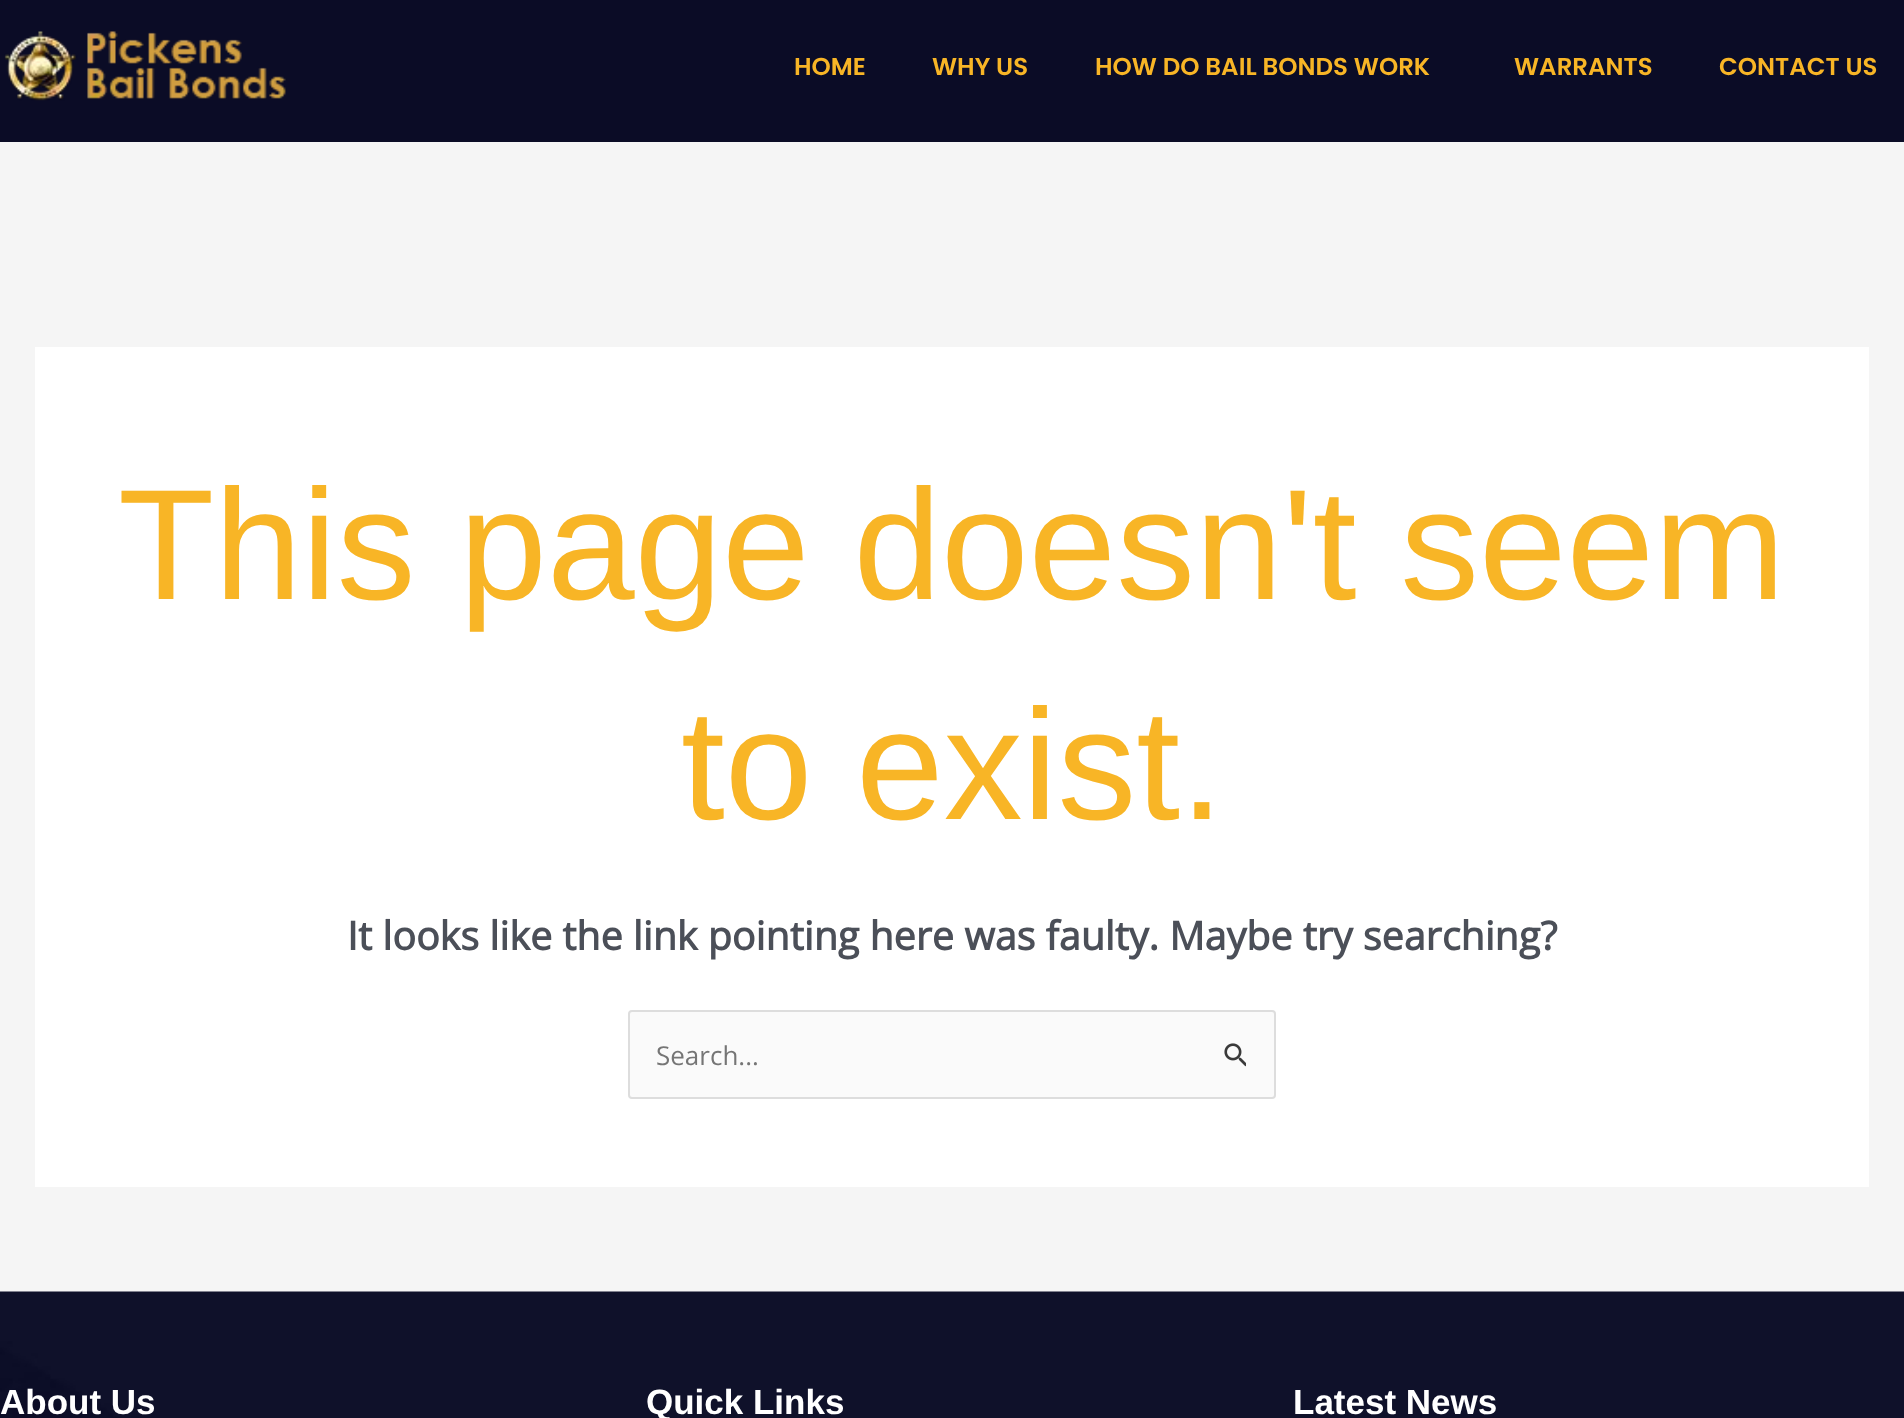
async function draw(canvas) {
  canvas.width = 1904;
  canvas.height = 1418;
  const ctx = canvas.getContext('2d');
  ctx.miterLimit = 4;
  ctx.fontKerning = 'normal';
  function label(s, x, y, font, color) {
    ctx.font = font;
    ctx.fillStyle = color;
    ctx.fillText(s, x, y);
  }
  function rect(x, y, w, h, color) {
    ctx.fillStyle = color;
    ctx.fillRect(x, y, w, h);
  }
  async function image(src, x, y, w, h) {
    const img = new Image();
    img.src = src;
    await img.decode();
    ctx.drawImage(img, x, y, w, h);
  }

  rect(0, 0, 1904, 1418, '#f5f5f5');
  rect(0, 0, 1904, 142, '#0b0c26');
  await image('assets/img1.png', 4, 31, 282, 70);
  label('HOME', 794, 75, '600 24.5px Poppins', '#f8b526');
  label('WHY US', 932, 75, '600 24.5px Poppins', '#f8b526');
  label('HOW DO BAIL BONDS WORK', 1095, 75, '600 24.5px Poppins', '#f8b526');
  label('WARRANTS', 1514, 75, '600 24.5px Poppins', '#f8b526');
  label('CONTACT US', 1719, 75, '600 24.5px Poppins', '#f8b526');
  rect(35, 347, 1834, 840, '#fff');
  label('This page doesn\'t seem', 118, 599, '157.5px Liberation Sans', '#f8b526');
  label('to exist.', 681, 819, '157.5px Liberation Sans', '#f8b526');
  label('It looks like the link pointing here was faulty. Maybe try searching?', 347, 950, 'bold 39.4px Open Sans', '#4b4f58');
  ctx.fillStyle = '#fafafa';
  ctx.beginPath();
  ctx.roundRect(629, 1011, 646, 87, 3);
  ctx.fill();
  ctx.strokeStyle = '#ddd';
  ctx.lineWidth = 2;
  ctx.stroke();
  label('Search...', 656, 1065, '26px Open Sans', '#757575');
  await image('assets/img2.png', 1224, 1043, 22, 24);
  await image('assets/img3.png', 0, 1291, 1904, 127);
  label('About Us', 0, 1414, 'bold 35px Liberation Sans', '#fff');
  label('Quick Links', 646, 1414, 'bold 35px Liberation Sans', '#fff');
  label('Latest News', 1293, 1414, 'bold 35px Liberation Sans', '#fff');
}

draw(document.querySelector('canvas'));
